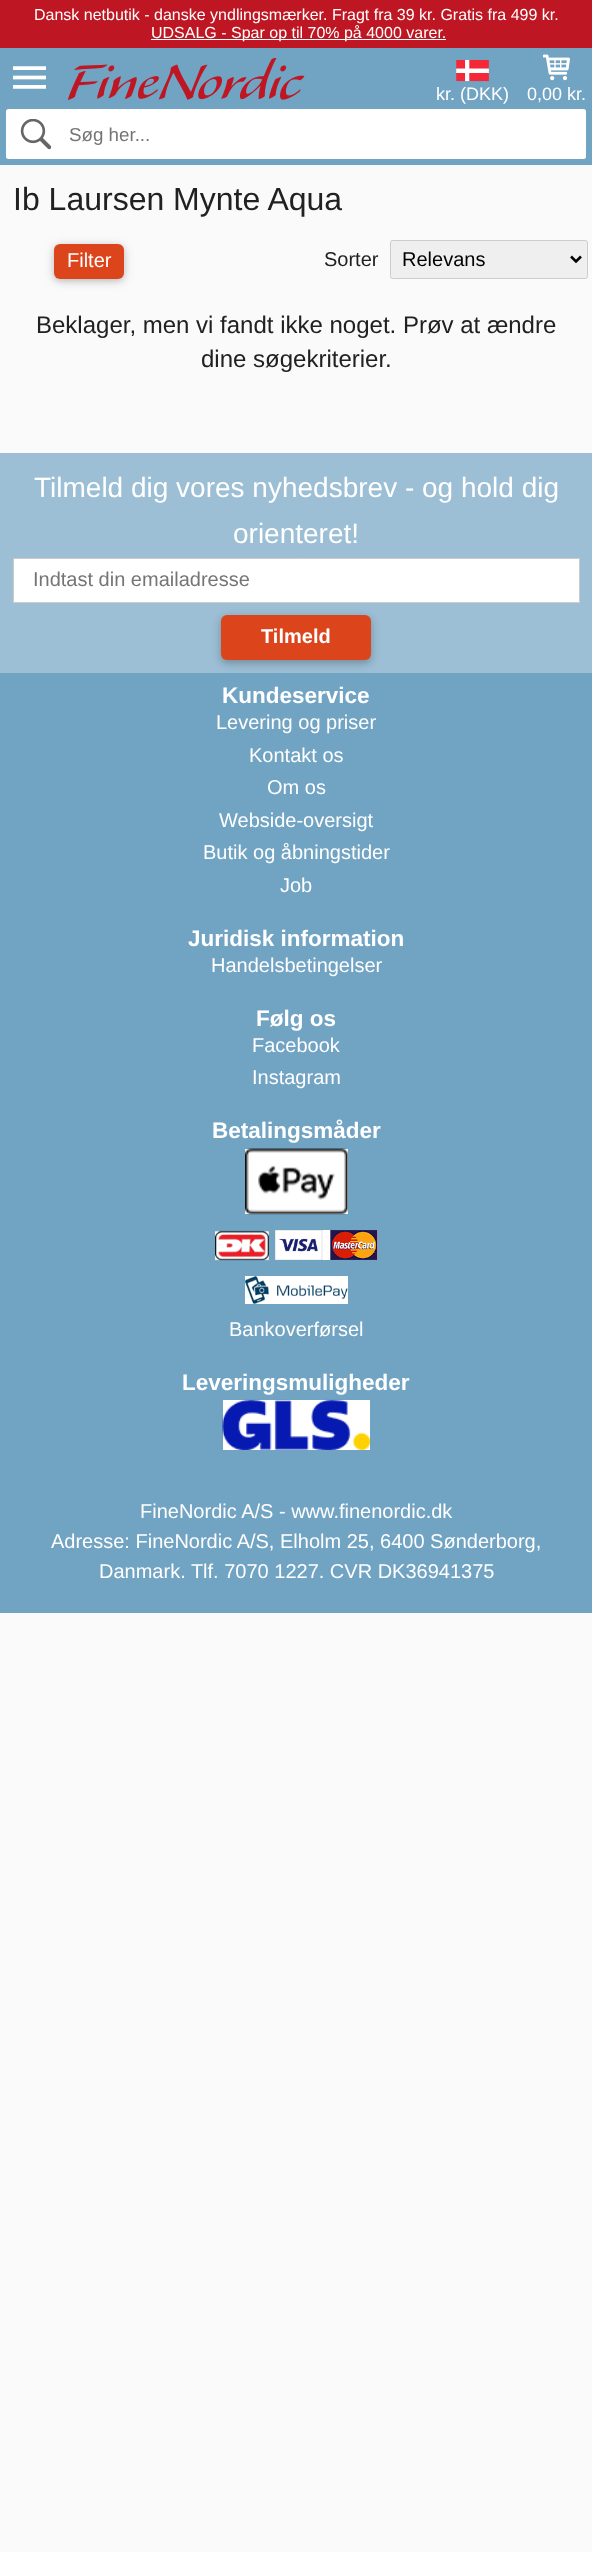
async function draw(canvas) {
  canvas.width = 592;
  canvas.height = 2552;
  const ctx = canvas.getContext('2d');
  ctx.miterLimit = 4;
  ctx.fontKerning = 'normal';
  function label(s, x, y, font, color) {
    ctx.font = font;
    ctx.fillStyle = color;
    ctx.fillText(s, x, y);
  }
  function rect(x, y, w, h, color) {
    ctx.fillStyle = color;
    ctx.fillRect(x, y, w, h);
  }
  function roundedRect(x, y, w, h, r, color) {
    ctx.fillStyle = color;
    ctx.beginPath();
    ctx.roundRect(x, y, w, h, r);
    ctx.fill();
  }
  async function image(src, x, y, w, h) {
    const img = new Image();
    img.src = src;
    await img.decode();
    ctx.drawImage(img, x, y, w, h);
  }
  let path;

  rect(0, 0, 592, 2552, '#fafafa');
  rect(0, 0, 592, 48, '#be1622');
  label('Dansk netbutik - danske yndlingsmærker. Fragt fra 39 kr. Gratis fra 499 kr.', 34, 20, '16px Liberation Sans', '#fff');
  rect(151, 39, 295, 1, '#fff');
  label('UDSALG - Spar op til 70% på 4000 varer.', 151, 38, '16px Liberation Sans', '#fff');
  rect(0, 48, 592, 117, '#71a3c3');
  await image('assets/img1.png', 456, 60, 33, 22);
  label('kr. (DKK)', 436, 100, '18px Liberation Sans', '#fff');
  await image('assets/img2.png', 543, 54, 27, 27);
  label('0,00 kr.', 527, 100, '18px Liberation Sans', '#fff');
  await image('assets/img3.png', 13, 66, 33, 23);
  await image('assets/img4.png', 67, 58, 238, 42);
  roundedRect(6, 109, 580, 50, 2.5, '#fff');
  await image('assets/img5.png', 20, 119, 31, 31);
  label('Søg her...', 69, 141, '18.75px Liberation Sans', '#757575');
  label('Ib Laursen Mynte Aqua', 13, 210, '32px Liberation Sans', '#212121');
  ctx.fillStyle = '#0000001f';
  ctx.filter = 'blur(6px)';
  ctx.beginPath();
  ctx.roundRect(54, 246, 70, 35, 6);
  ctx.fill();
  ctx.filter = 'none';
  ctx.fillStyle = '#00000029';
  ctx.filter = 'blur(3px)';
  ctx.beginPath();
  ctx.roundRect(54, 246, 70, 35, 6);
  ctx.fill();
  ctx.filter = 'none';
  roundedRect(54, 244, 70, 35, 6, '#dc451c');
  label('Filter', 67, 267, '20px Liberation Sans', '#fff');
  label('Sorter', 324, 266, '20px Liberation Sans', '#212121');
  ctx.fillStyle = '#efefef';
  ctx.beginPath();
  ctx.roundRect(390.5, 240.5, 197, 38, 2);
  ctx.fill();
  ctx.strokeStyle = '#ccc';
  ctx.stroke();
  path = new Path2D('M571 256.5L576 261.5L581 256.5');
  ctx.strokeStyle = '#000';
  ctx.lineWidth = 2.5;
  ctx.stroke(path);
  label('Relevans', 402, 266, '20px Liberation Sans', '#000');
  label('Beklager, men vi fandt ikke noget. Prøv at ændre', 36, 333, '24px Liberation Sans', '#212121');
  label('dine søgekriterier.', 201, 367, '24px Liberation Sans', '#212121');
  rect(0, 453, 592, 220, '#9cbfd5');
  label('Tilmeld dig vores nyhedsbrev - og hold dig', 34, 497, '28px Liberation Sans', '#fff');
  label('orienteret!', 233, 543, '28px Liberation Sans', '#fff');
  ctx.beginPath();
  ctx.rect(13.5, 558.5, 566, 44);
  ctx.fill();
  ctx.strokeStyle = '#ccc';
  ctx.lineWidth = 1;
  ctx.stroke();
  label('Indtast din emailadresse', 33, 586, '20px Liberation Sans', '#757575');
  rect(0, 673, 592, 940, '#71a3c3');
  ctx.fillStyle = '#0000001f';
  ctx.filter = 'blur(6px)';
  ctx.beginPath();
  ctx.roundRect(221, 618, 150, 45, 6);
  ctx.fill();
  ctx.filter = 'none';
  ctx.fillStyle = '#00000029';
  ctx.filter = 'blur(3px)';
  ctx.beginPath();
  ctx.roundRect(221, 618, 150, 45, 6);
  ctx.fill();
  ctx.filter = 'none';
  roundedRect(221, 615, 150, 45, 6, '#dc451c');
  label('Tilmeld', 261, 643, 'bold 20px Liberation Sans', '#fff');
  label('Kundeservice', 222, 703, 'bold 22.5px Liberation Sans', '#fff');
  label('Levering og priser', 216, 729, '20px Liberation Sans', '#fff');
  label('Kontakt os', 249, 762, '20px Liberation Sans', '#fff');
  label('Om os', 267, 794, '20px Liberation Sans', '#fff');
  label('Webside-oversigt', 219, 827, '20px Liberation Sans', '#fff');
  label('Butik og åbningstider', 203, 859, '20px Liberation Sans', '#fff');
  label('Job', 280, 892, '20px Liberation Sans', '#fff');
  label('Juridisk information', 188, 946, 'bold 22.5px Liberation Sans', '#fff');
  label('Handelsbetingelser', 211, 972, '20px Liberation Sans', '#fff');
  label('Følg os', 256, 1026, 'bold 22.5px Liberation Sans', '#fff');
  label('Facebook', 252, 1052, '20px Liberation Sans', '#fff');
  label('Instagram', 252, 1084, '20px Liberation Sans', '#fff');
  label('Betalingsmåder', 212, 1138, 'bold 22.5px Liberation Sans', '#fff');
  rect(245, 1149, 103, 65, '#fff');
  await image('assets/img6.png', 245, 1148, 103, 67);
  await image('assets/img7.png', 215, 1230, 54, 31);
  rect(275, 1230, 103, 30, '#fff');
  await image('assets/img8.png', 275, 1230, 103, 30);
  rect(245, 1276, 103, 28, '#fff');
  await image('assets/img9.png', 245, 1276, 103, 28);
  label('Bankoverførsel', 229, 1336, '20px Liberation Sans', '#fff');
  label('Leveringsmuligheder', 182, 1390, 'bold 22.5px Liberation Sans', '#fff');
  rect(223, 1400, 147, 50, '#fff');
  await image('assets/img10.png', 222, 1399, 148, 51);
  label('FineNordic A/S - www.finenordic.dk', 140, 1518, '20px Liberation Sans', '#fff');
  label('Adresse: FineNordic A/S, Elholm 25, 6400 Sønderborg,', 51, 1548, '20px Liberation Sans', '#fff');
  label('Danmark. Tlf. 7070 1227. CVR DK36941375', 99, 1578, '20px Liberation Sans', '#fff');
}

draw(document.querySelector('canvas'));
